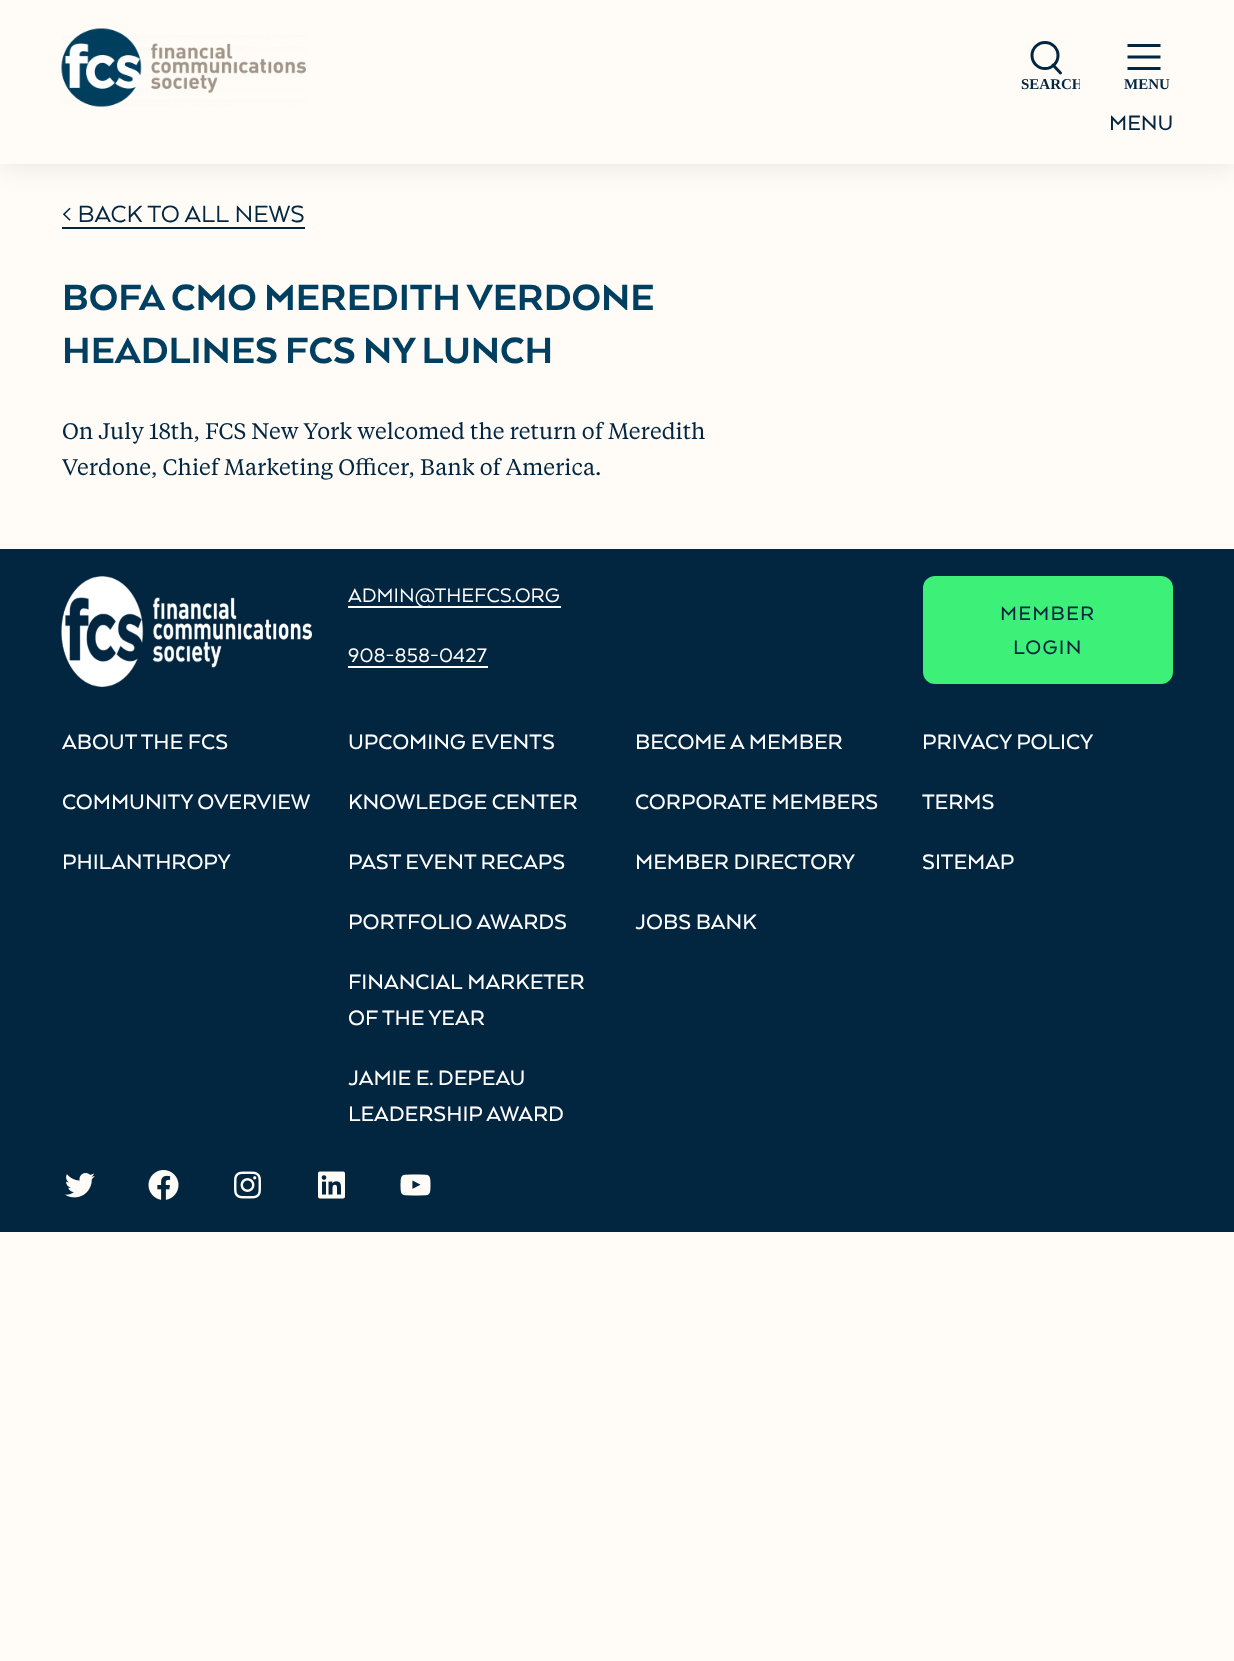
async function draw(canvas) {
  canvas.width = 1234;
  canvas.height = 1661;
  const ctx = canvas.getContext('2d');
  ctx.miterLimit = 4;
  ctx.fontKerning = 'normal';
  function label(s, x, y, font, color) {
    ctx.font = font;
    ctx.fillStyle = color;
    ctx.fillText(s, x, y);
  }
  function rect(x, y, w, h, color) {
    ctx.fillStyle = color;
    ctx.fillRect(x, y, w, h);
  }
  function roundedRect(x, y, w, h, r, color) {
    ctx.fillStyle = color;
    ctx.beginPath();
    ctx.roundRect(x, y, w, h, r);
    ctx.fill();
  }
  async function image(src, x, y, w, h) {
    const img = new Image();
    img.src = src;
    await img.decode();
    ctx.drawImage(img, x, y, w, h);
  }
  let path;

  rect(0, 0, 1234, 1661, '#fffcf8');
  ctx.fillStyle = '#0000001a';
  ctx.filter = 'blur(15px)';
  ctx.beginPath();
  ctx.rect(0, 0, 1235, 164);
  ctx.fill();
  ctx.filter = 'none';
  rect(0, 0, 1234, 164, '#fffcf8');
  await image('assets/img1.png', 61, 28, 245, 79);
  ctx.save();
  ctx.beginPath();
  ctx.rect(1014, 33, 66, 66);
  ctx.clip();
  label('SEARCH', 1021, 89, 'bold 15px Liberation Serif', '#032640');
  ctx.restore();
  ctx.beginPath();
  ctx.arc(1045, 55.5, 13, 0, 2 * Math.PI);
  ctx.strokeStyle = '#032640';
  ctx.lineWidth = 3;
  ctx.stroke();
  path = new Path2D('M1053 65L1060.5 73');
  ctx.lineCap = 'round';
  ctx.stroke(path);
  label('MENU', 1124, 89, 'bold 15px Liberation Serif', '#032640');
  path = new Path2D('M1127.5 45.5H1160.5M1127.5 57H1160.5M1127.5 68.5H1160.5');
  ctx.lineCap = 'butt';
  ctx.stroke(path);
  label('MENU', 1109, 130, '500 24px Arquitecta', '#032640');
  label('< BACK TO ALL NEWS', 62, 222, '27px Arquitecta', '#032640');
  rect(62, 227, 243, 2, '#032640');
  label('BOFA CMO MEREDITH VERDONE', 62, 310, '900 42px Arquitecta', '#003f5f');
  label('HEADLINES FCS NY LUNCH', 62, 363, '900 42px Arquitecta', '#003f5f');
  label('On July 18th, FCS New York welcomed the return of Meredith', 62, 439, '22.5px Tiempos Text', '#032640');
  label('Verdone, Chief Marketing Officer, Bank of America.', 62, 475, '22.5px Tiempos Text', '#032640');
  rect(0, 549, 1234, 683, '#032640');
  await image('assets/img2.png', 61, 576, 251, 111);
  rect(348, 606, 213, 2, '#fff');
  label('ADMIN@THEFCS.ORG', 348, 602, '22.5px Arquitecta', '#fff');
  label('908-858-0427', 348, 662, '22.5px Arquitecta', '#fff');
  rect(348, 666, 140, 2, '#fff');
  roundedRect(923, 576, 250, 108, 12, '#3df078');
  ctx.letterSpacing = '1.25px';
  label('MEMBER', 1000, 620, '500 22.5px Arquitecta', '#032640');
  label('LOGIN', 1013, 654, '500 22.5px Arquitecta', '#032640');
  ctx.letterSpacing = '0px';
  label('ABOUT THE FCS', 62, 749, '500 24px Arquitecta', '#fff');
  label('COMMUNITY OVERVIEW', 62, 809, '500 24px Arquitecta', '#fff');
  label('PHILANTHROPY', 62, 869, '500 24px Arquitecta', '#fff');
  label('UPCOMING EVENTS', 348, 749, '500 24px Arquitecta', '#fff');
  label('KNOWLEDGE CENTER', 348, 809, '500 24px Arquitecta', '#fff');
  label('PAST EVENT RECAPS', 348, 869, '500 24px Arquitecta', '#fff');
  label('PORTFOLIO AWARDS', 348, 929, '500 24px Arquitecta', '#fff');
  label('FINANCIAL MARKETER', 348, 989, '500 24px Arquitecta', '#fff');
  label('OF THE YEAR', 348, 1025, '500 24px Arquitecta', '#fff');
  label('JAMIE E. DEPEAU', 348, 1085, '500 24px Arquitecta', '#fff');
  label('LEADERSHIP AWARD', 348, 1121, '500 24px Arquitecta', '#fff');
  label('BECOME A MEMBER', 635, 749, '500 24px Arquitecta', '#fff');
  label('CORPORATE MEMBERS', 635, 809, '500 24px Arquitecta', '#fff');
  label('MEMBER DIRECTORY', 635, 869, '500 24px Arquitecta', '#fff');
  label('JOBS BANK', 635, 929, '500 24px Arquitecta', '#fff');
  label('PRIVACY POLICY', 922, 749, '500 24px Arquitecta', '#fff');
  label('TERMS', 922, 809, '500 24px Arquitecta', '#fff');
  label('SITEMAP', 922, 869, '500 24px Arquitecta', '#fff');
  await image('assets/img3.png', 65, 1173, 30, 25);
  await image('assets/img4.png', 148, 1170, 31, 30);
  await image('assets/img5.png', 234, 1171, 27, 28);
  await image('assets/img6.png', 318, 1171, 27, 28);
  await image('assets/img7.png', 400, 1174, 31, 22);
}

draw(document.querySelector('canvas'));
